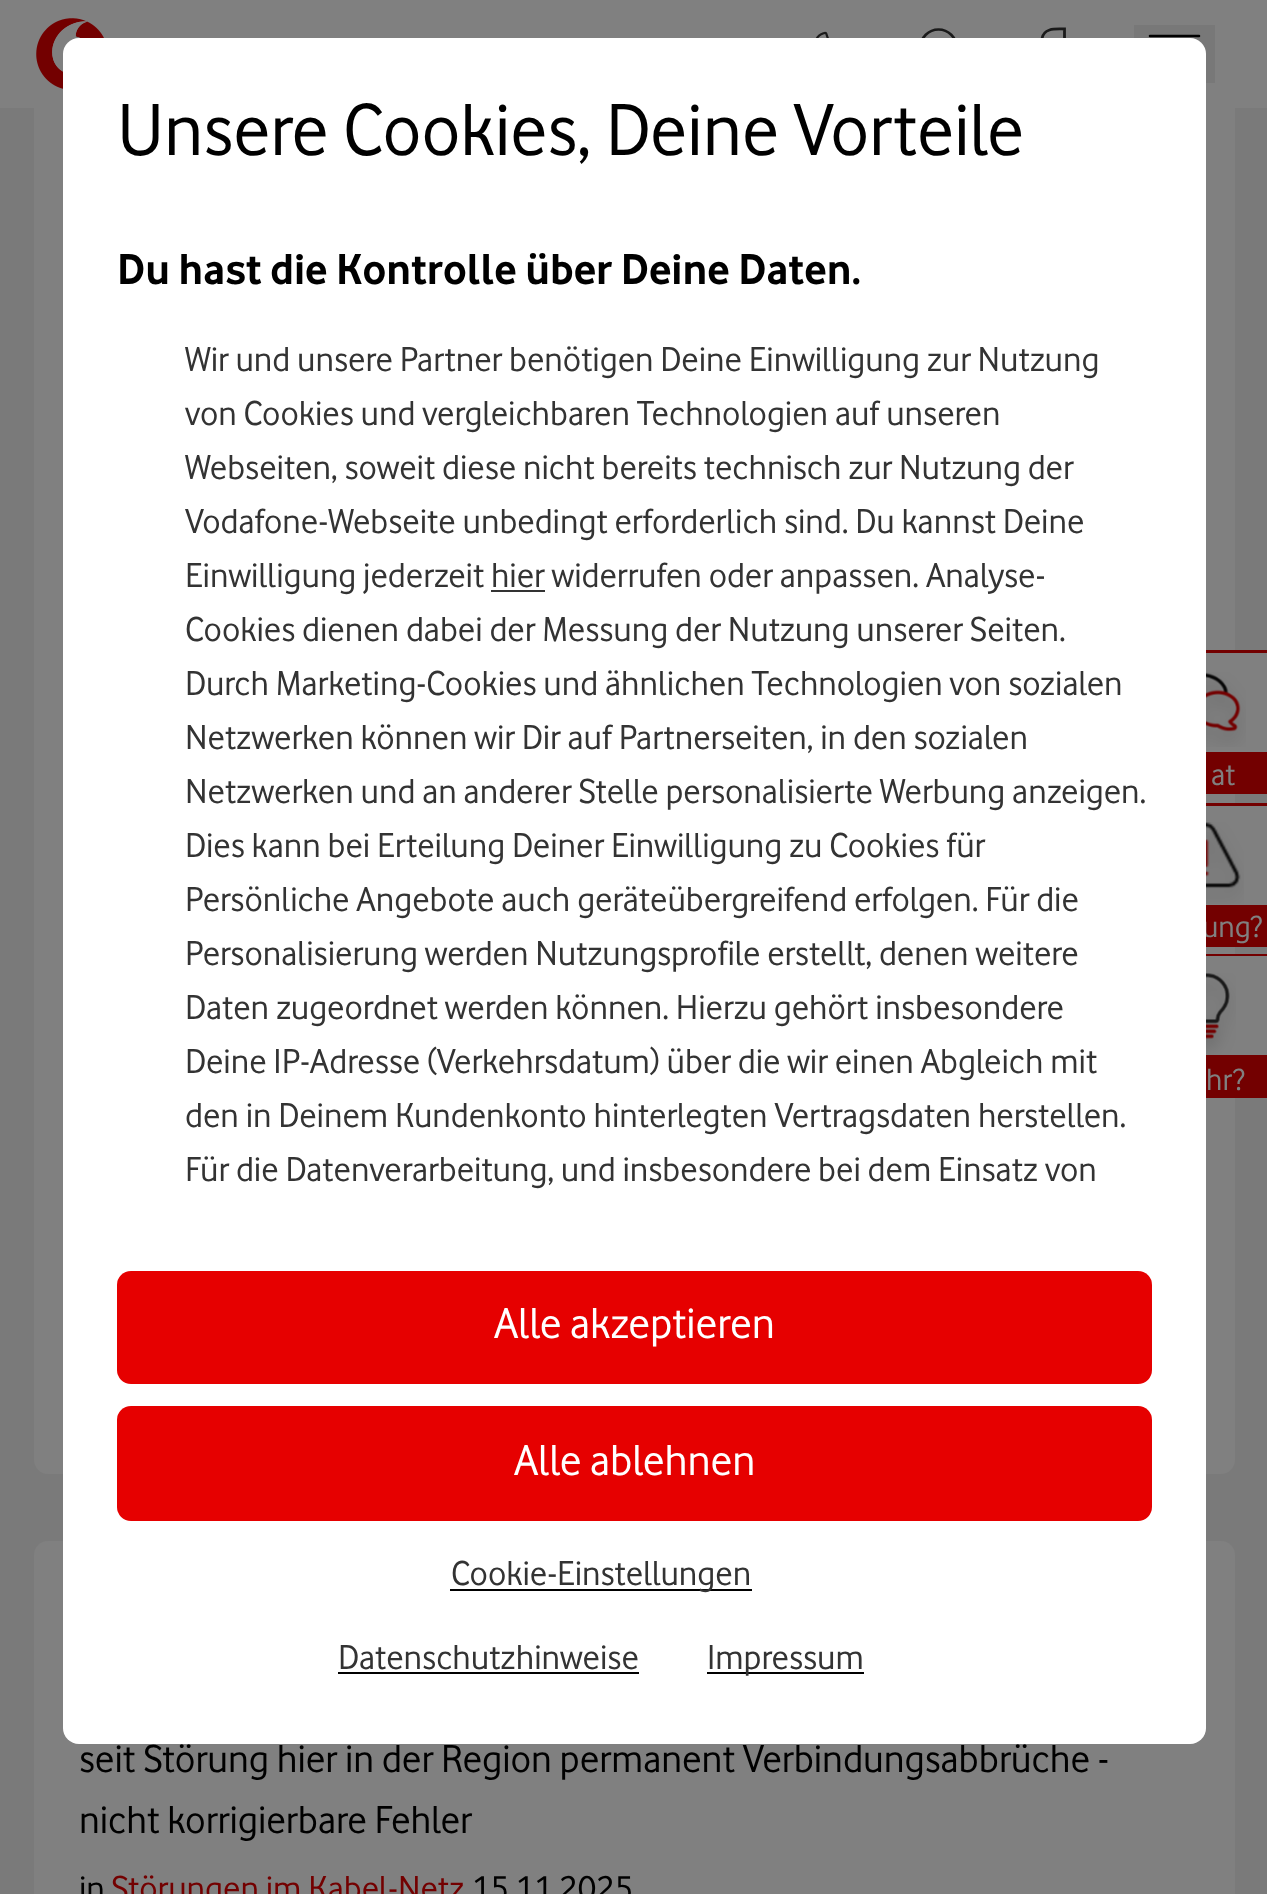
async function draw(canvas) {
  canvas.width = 1267;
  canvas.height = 1894;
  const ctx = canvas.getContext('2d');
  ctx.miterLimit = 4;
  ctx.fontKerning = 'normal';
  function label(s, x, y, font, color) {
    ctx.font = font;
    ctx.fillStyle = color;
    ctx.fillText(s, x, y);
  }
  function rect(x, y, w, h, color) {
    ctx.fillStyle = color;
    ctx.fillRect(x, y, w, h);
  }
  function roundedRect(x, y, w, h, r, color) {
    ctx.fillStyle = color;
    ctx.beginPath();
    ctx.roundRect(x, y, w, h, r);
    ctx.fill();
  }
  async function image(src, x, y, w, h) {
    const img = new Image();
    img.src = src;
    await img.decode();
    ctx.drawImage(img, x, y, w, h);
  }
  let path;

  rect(0, 0, 1267, 1894, '#7a7a7a');
  roundedRect(34, -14, 1201, 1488, 14, '#808080');
  rect(0, 0, 1267, 108, '#808080');
  await image('assets/img1.png', 36, 18, 68, 71);
  ctx.beginPath();
  ctx.arc(938.5, 47.5, 18, 0, 2 * Math.PI);
  ctx.strokeStyle = '#1a1a1a';
  ctx.lineWidth = 2.6;
  ctx.stroke();
  path = new Path2D('M1064.5 41C1064.5 43.5 1064 45.5 1062.5 47.5C1055.5 58 1039.5 51 1042 38.5C1044 27.5 1056 29 1064.5 29Z');
  ctx.lineWidth = 2.8;
  ctx.stroke(path);
  rect(1134, 25, 81, 58, '#787878');
  path = new Path2D('M1199 69.5H1150M1199 53H1150M1199 36H1150');
  ctx.strokeStyle = '#000';
  ctx.lineWidth = 2.6;
  ctx.lineCap = 'round';
  ctx.lineJoin = 'round';
  ctx.stroke(path);
  rect(1206, 652, 61, 140, '#730000');
  ctx.strokeStyle = '#730000';
  ctx.lineWidth = 2;
  ctx.lineJoin = 'miter';
  ctx.strokeRect(1144, 651, 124, 142);
  rect(1206, 805, 61, 140, '#730000');
  ctx.strokeRect(1144, 804, 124, 142);
  label('ung?', 1202, 937, '32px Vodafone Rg', '#808080');
  rect(1206, 1055, 61, 41, '#730000');
  ctx.strokeRect(1144, 955, 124, 142);
  roundedRect(34, 1541, 1201, 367, 14, '#808080');
  roundedRect(63, 38, 1143, 1706, 16, '#fff');
  label('Unsere Cookies, Deine Vorteile', 117, 155, '76.5px Vodafone Rg', '#000');
  label('Du hast die Kontrolle über Deine Daten.', 117, 284, 'bold 45px Vodafone Rg', '#000');
  label('Wir und unsere Partner benötigen Deine Einwilligung zur Nutzung', 185, 371, '36px Vodafone Rg', '#333');
  label('von Cookies und vergleichbaren Technologien auf unseren', 185, 425, '36px Vodafone Rg', '#333');
  label('Webseiten, soweit diese nicht bereits technisch zur Nutzung der', 185, 479, '36px Vodafone Rg', '#333');
  label('Vodafone-Webseite unbedingt erforderlich sind. Du kannst Deine', 185, 533, '36px Vodafone Rg', '#333');
  label('Einwilligung jederzeit hier widerrufen oder anpassen. Analyse-', 185, 587, '36px Vodafone Rg', '#333');
  rect(491, 590, 54, 2, '#333');
  label('Cookies dienen dabei der Messung der Nutzung unserer Seiten.', 185, 641, '36px Vodafone Rg', '#333');
  label('Durch Marketing-Cookies und ähnlichen Technologien von sozialen', 185, 695, '36px Vodafone Rg', '#333');
  label('Netzwerken können wir Dir auf Partnerseiten, in den sozialen', 185, 749, '36px Vodafone Rg', '#333');
  label('Netzwerken und an anderer Stelle personalisierte Werbung anzeigen.', 185, 803, '36px Vodafone Rg', '#333');
  label('Dies kann bei Erteilung Deiner Einwilligung zu Cookies für', 185, 857, '36px Vodafone Rg', '#333');
  label('Persönliche Angebote auch geräteübergreifend erfolgen. Für die', 185, 911, '36px Vodafone Rg', '#333');
  label('Personalisierung werden Nutzungsprofile erstellt, denen weitere', 185, 965, '36px Vodafone Rg', '#333');
  label('Daten zugeordnet werden können. Hierzu gehört insbesondere', 185, 1019, '36px Vodafone Rg', '#333');
  label('Deine IP-Adresse (Verkehrsdatum) über die wir einen Abgleich mit', 185, 1073, '36px Vodafone Rg', '#333');
  label('den in Deinem Kundenkonto hinterlegten Vertragsdaten herstellen. ', 185, 1127, '36px Vodafone Rg', '#333');
  label('Für die Datenverarbeitung, und insbesondere bei dem Einsatz von', 185, 1181, '36px Vodafone Rg', '#333');
  roundedRect(117, 1271, 1035, 113, 14, '#e60000');
  label('Alle akzeptieren', 494, 1338, '45px Vodafone Rg', '#fff');
  roundedRect(117, 1406, 1035, 115, 14, '#e60000');
  label('Alle ablehnen', 514, 1475, '45px Vodafone Rg', '#fff');
  rect(450, 1589, 302, 2, '#000');
  label('Cookie-Einstellungen', 451, 1585, '36px Vodafone Rg', '#333');
  label('Datenschutzhinweise', 338, 1669, '36px Vodafone Rg', '#333');
  rect(338, 1672, 301, 2, '#000');
  rect(707, 1672, 157, 2, '#000');
  label('Impressum', 707, 1669, '36px Vodafone Rg', '#333');
  await image('assets/img2.png', 815, 31, 14, 7);
  rect(1206, 653, 61, 99, '#808080');
  await image('assets/img3.png', 1206, 672, 40, 75);
  label('at', 1211, 785, '32px Vodafone Rg', '#808080');
  rect(1206, 806, 61, 99, '#808080');
  await image('assets/img4.png', 1206, 822, 38, 82);
  rect(1235, 956, 32, 99, '#808080');
  await image('assets/img5.png', 1206, 973, 30, 82);
  label('hr?', 1206, 1090, '32px Vodafone Rg', '#808080');
  label('seit Störung hier in der Region permanent Verbindungsabbrüche -', 79, 1772, '40.5px Vodafone Rg', '#000');
  label('nicht korrigierbare Fehler', 79, 1833, '40.5px Vodafone Rg', '#000');
  label('in', 79, 1900, '36px Vodafone Rg', '#000');
  label('Störungen im Kabel-Netz', 111, 1900, '36px Vodafone Rg', '#730000');
  label('15.11.2025', 472, 1900, '36px Vodafone Rg', '#000');
}

draw(document.querySelector('canvas'));
